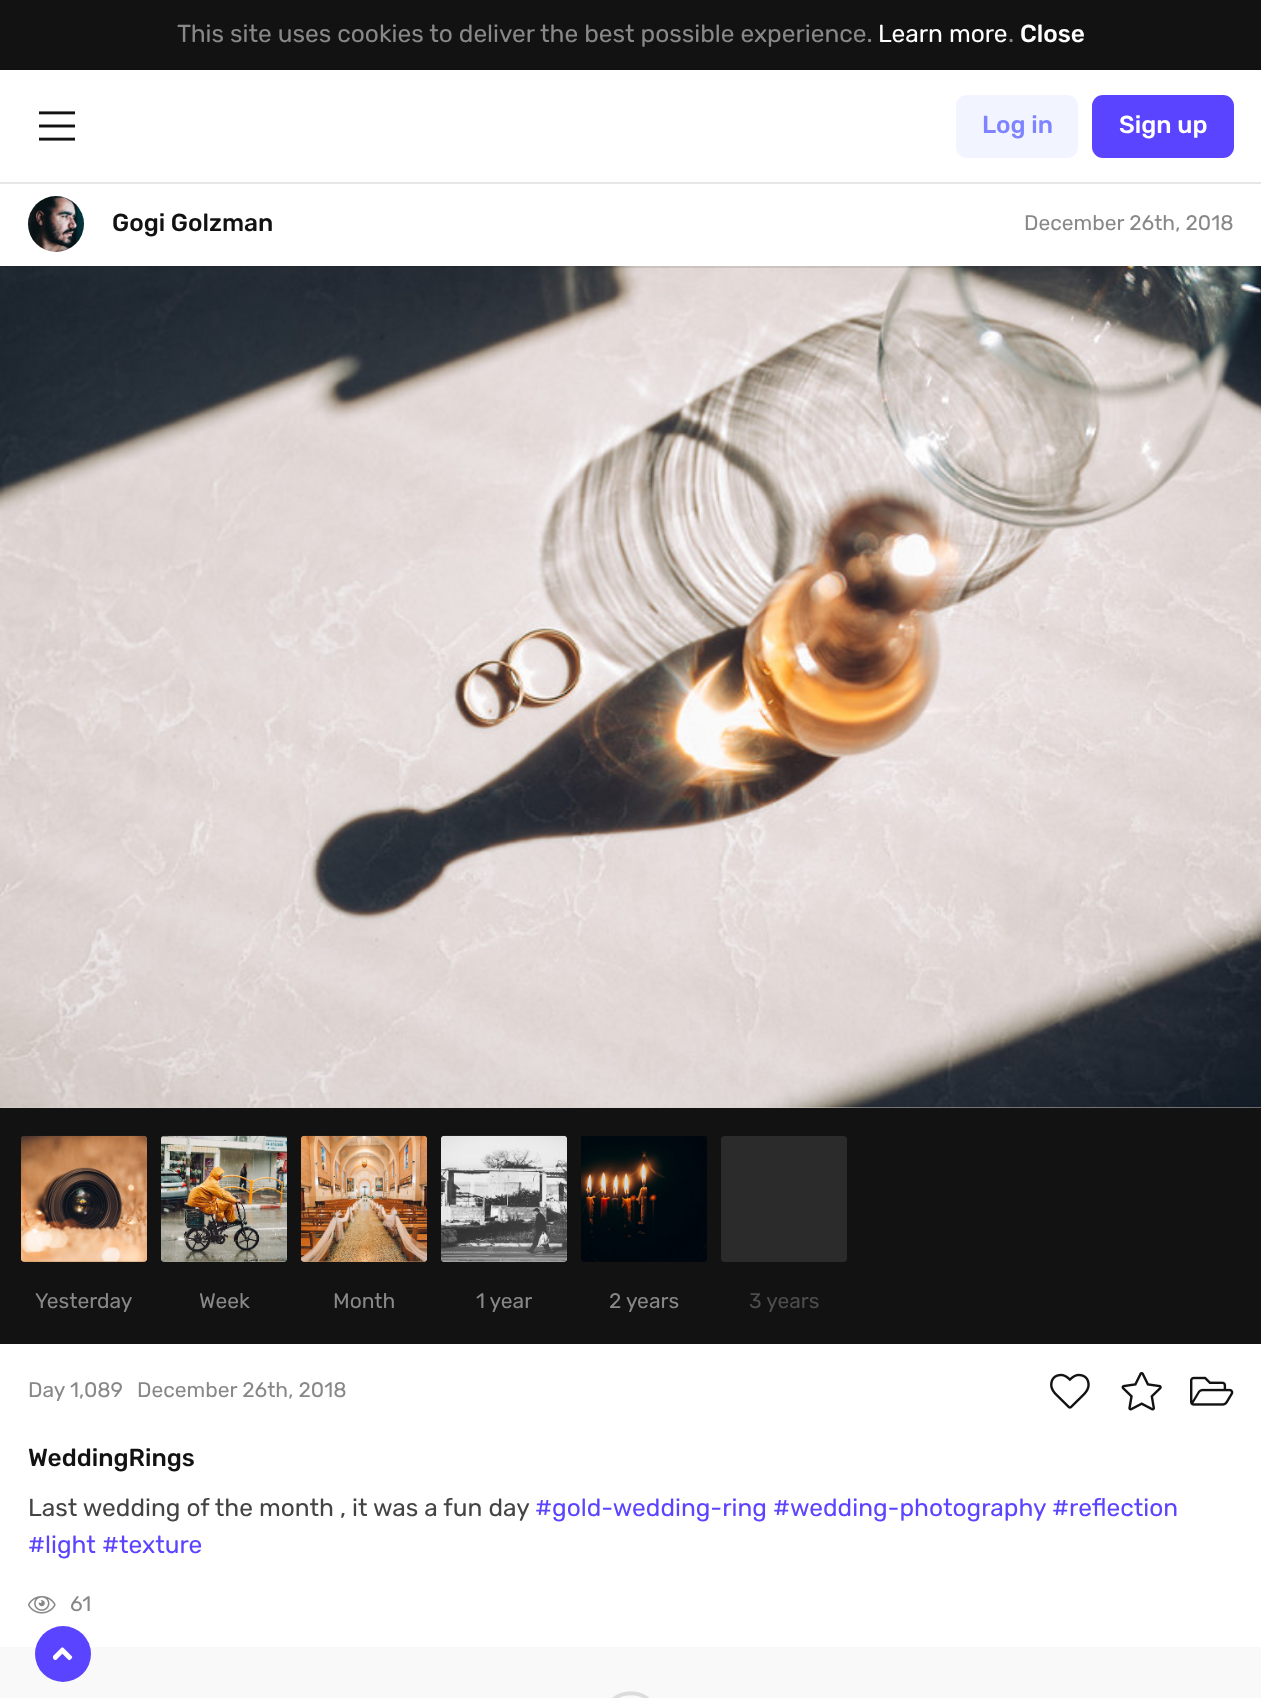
async function draw(canvas) {
  canvas.width = 1261;
  canvas.height = 1698;
  const ctx = canvas.getContext('2d');
  ctx.miterLimit = 4;
  ctx.fontKerning = 'normal';
  function label(s, x, y, font, color) {
    ctx.font = font;
    ctx.fillStyle = color;
    ctx.fillText(s, x, y);
  }
  function rect(x, y, w, h, color) {
    ctx.fillStyle = color;
    ctx.fillRect(x, y, w, h);
  }
  function roundedRect(x, y, w, h, r, color) {
    ctx.fillStyle = color;
    ctx.beginPath();
    ctx.roundRect(x, y, w, h, r);
    ctx.fill();
  }
  async function image(src, x, y, w, h) {
    const img = new Image();
    img.src = src;
    await img.decode();
    ctx.drawImage(img, x, y, w, h);
  }
  let path;

  rect(0, 0, 1261, 1698, '#fff');
  rect(0, 0, 1261, 70, '#121212');
  label('This site uses cookies to deliver the best possible experience.', 177, 42, '24.5px Rubik', '#888');
  label('Learn more', 878, 42, '24.5px Rubik', '#fff');
  label('.', 1008, 42, '24.5px Rubik', '#888');
  label('Close', 1020, 42, '500 24.5px Rubik', '#fff');
  ctx.fillStyle = '#e7e7e7';
  path = new Path2D('M0 182V184H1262V72V182Z');
  ctx.fill(path);
  await image('assets/img1.png', 39, 111, 36, 30);
  roundedRect(956, 95, 122, 63, 11, '#f2f4ff');
  label('Log in', 982, 133, '500 24.5px Rubik', '#7e84ff');
  roundedRect(1092, 95, 142, 63, 11, '#5a44ff');
  label('Sign up', 1119, 133, '500 24.5px Rubik', '#fff');
  rect(0, 1107, 1261, 1, '#ded5d1');
  await image('assets/img3.png', 0, 266, 1261, 842);
  ctx.fillStyle = '#1212121a';
  path = new Path2D('M0 266V268H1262V184V266Z');
  ctx.fill(path);
  ctx.fillStyle = '#f5f5f5';
  ctx.beginPath();
  ctx.arc(56, 224, 28, 0, 2 * Math.PI);
  ctx.fill();
  await image('assets/img2.png', 28, 196, 56, 56);
  label('Gogi Golzman', 112, 231, '500 24.5px Rubik', '#121212');
  label('December 26th, 2018', 1024, 230, '21px Rubik', '#888');
  rect(0, 1108, 1261, 236, '#121212');
  roundedRect(21, 1136, 126, 126, 4, '#bf946a');
  await image('assets/img4.png', 21, 1135, 126, 127);
  label('Yesterday', 35, 1308, '21px Rubik', '#888');
  roundedRect(161, 1136, 126, 126, 4, '#a6a497');
  await image('assets/img5.png', 161, 1135, 126, 127);
  label('Week', 199, 1308, '21px Rubik', '#888');
  roundedRect(301, 1136, 126, 126, 4, '#cc9362');
  await image('assets/img6.png', 301, 1135, 126, 127);
  label('Month', 333, 1308, '21px Rubik', '#888');
  roundedRect(441, 1136, 126, 126, 4, '#cfcfcf');
  await image('assets/img7.png', 441, 1135, 126, 127);
  label('1 year', 476, 1308, '21px Rubik', '#888');
  roundedRect(581, 1136, 126, 126, 4, '#090b0e');
  await image('assets/img8.png', 581, 1136, 126, 126);
  label('2 years', 609, 1308, '21px Rubik', '#888');
  roundedRect(721, 1136, 126, 126, 4, '#2b2b2b');
  label('3 years', 749, 1308, '21px Rubik', '#4d4d4d');
  label('Day 1,089', 28, 1397, '21px Rubik', '#888');
  label('December 26th, 2018', 137, 1397, '21px Rubik', '#888');
  await image('assets/img9.png', 1050, 1373, 40, 36);
  await image('assets/img10.png', 1121, 1372, 41, 39);
  await image('assets/img11.png', 1190, 1376, 44, 30);
  label('WeddingRings', 28, 1466, '500 24.5px Rubik', '#121212');
  label('Last wedding of the month , it was a fun day', 28, 1516, '24.5px Rubik', '#444');
  label('#gold-wedding-ring #wedding-photography', 535, 1516, '24.5px Rubik', '#5a44ff');
  label('#reflection', 1052, 1516, '24.5px Rubik', '#5a44ff');
  label('#light #texture', 28, 1553, '24.5px Rubik', '#5a44ff');
  await image('assets/img12.png', 28, 1595, 28, 19);
  label('61', 70, 1611, '21px Rubik', '#888');
  rect(0, 1647, 1261, 51, '#f9f9f9');
  await image('assets/img13.png', 612, 1691, 37, 7);
  ctx.fillStyle = '#5a44ff';
  ctx.beginPath();
  ctx.arc(63, 1654, 28, 0, 2 * Math.PI);
  ctx.fill();
  await image('assets/img14.png', 53, 1647, 20, 14);
}

draw(document.querySelector('canvas'));
